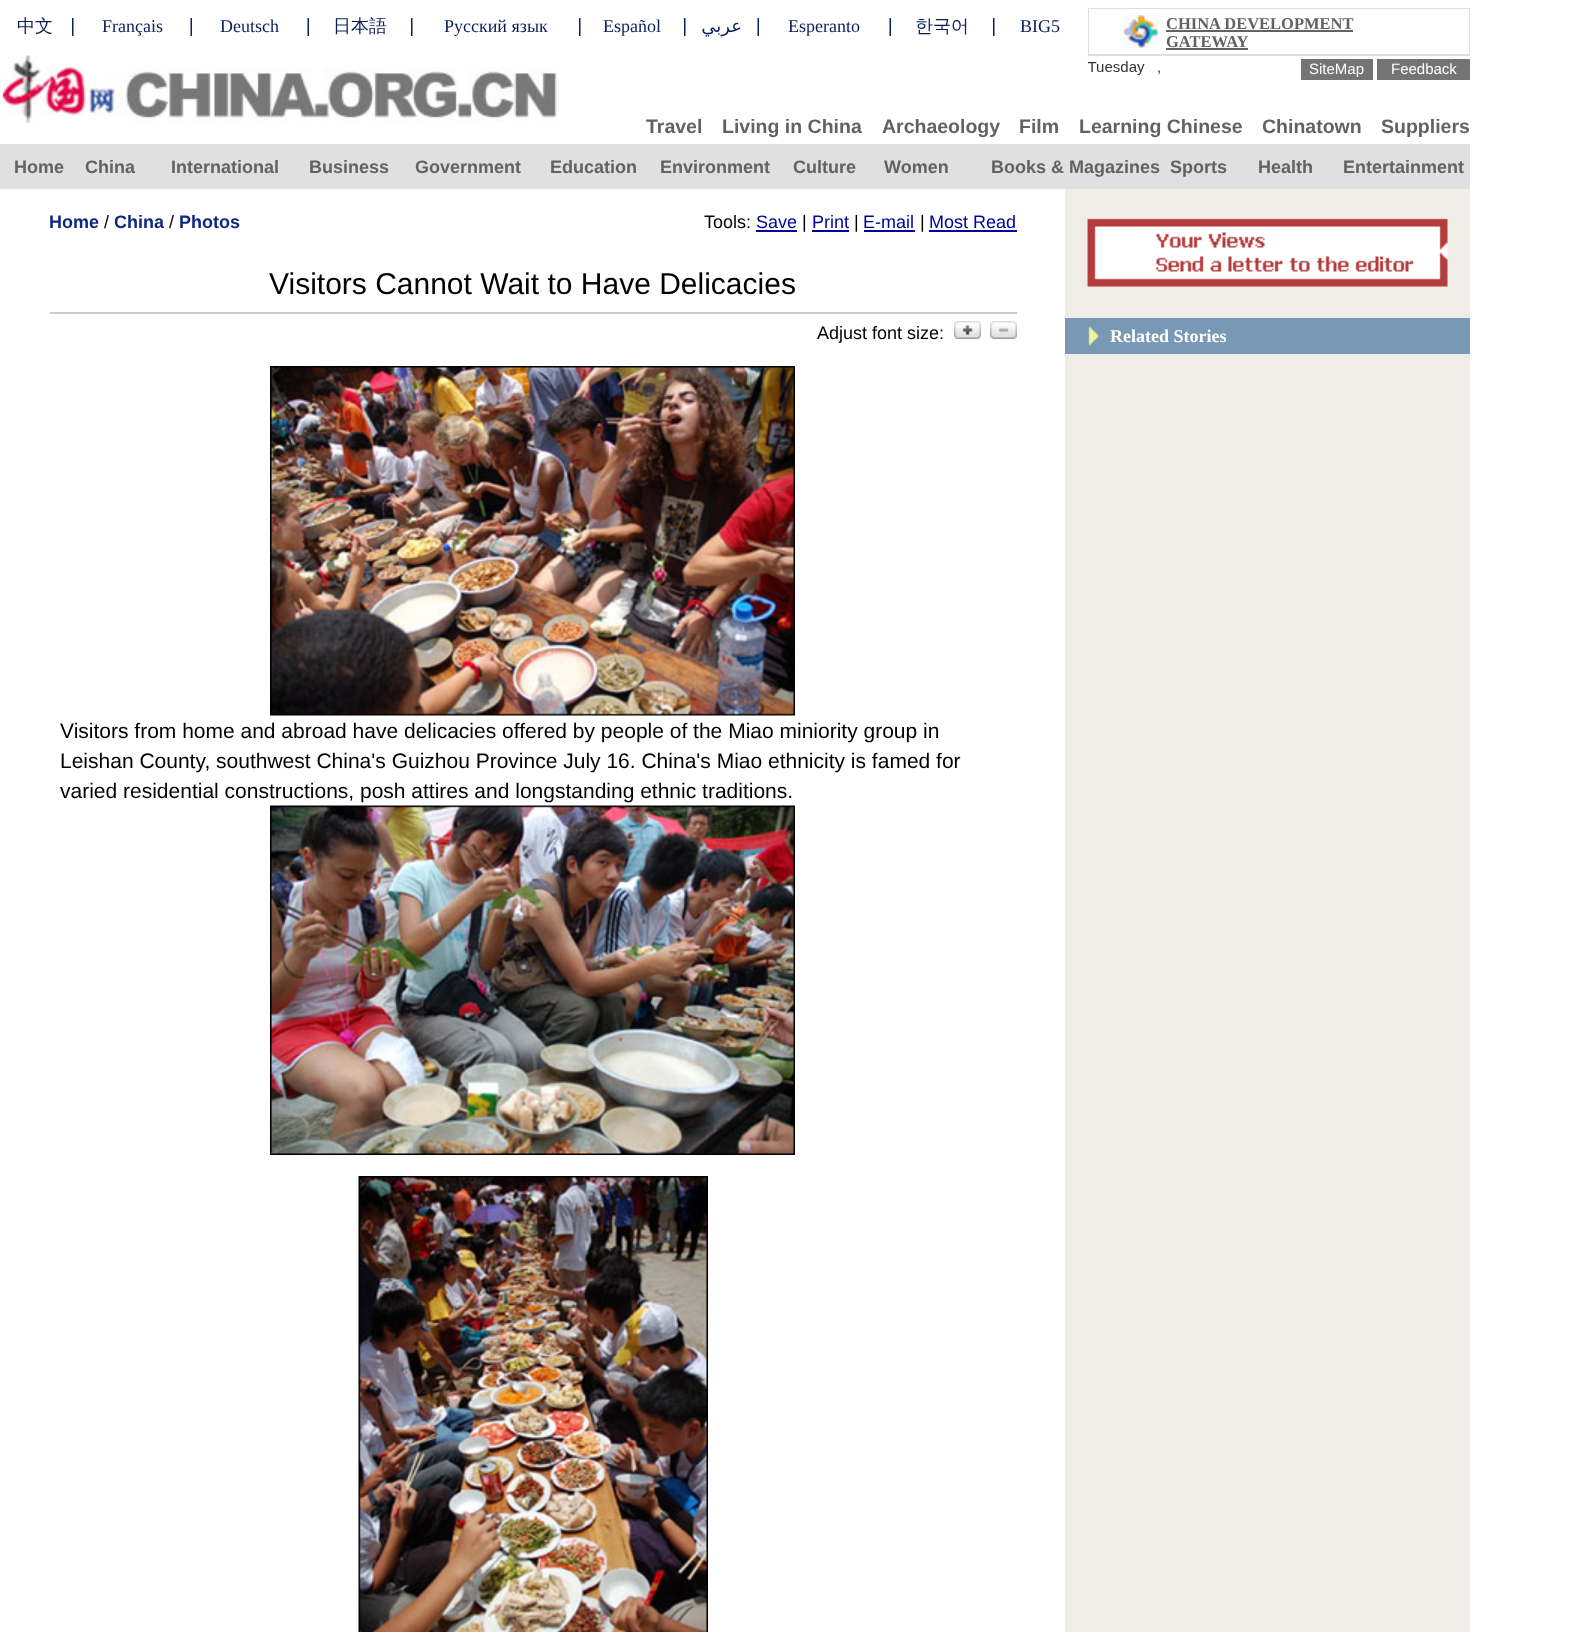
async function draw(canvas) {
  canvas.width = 1594;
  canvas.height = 1632;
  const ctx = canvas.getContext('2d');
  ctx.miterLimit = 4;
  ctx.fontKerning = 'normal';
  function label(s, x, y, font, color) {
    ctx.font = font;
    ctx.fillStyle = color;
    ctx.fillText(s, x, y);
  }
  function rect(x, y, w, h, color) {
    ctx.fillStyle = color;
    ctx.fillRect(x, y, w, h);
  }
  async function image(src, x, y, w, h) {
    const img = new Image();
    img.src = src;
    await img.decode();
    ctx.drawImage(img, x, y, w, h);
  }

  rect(0, 0, 1594, 1632, '#fff');
  label('中文', 17, 32, '500 18px WenQuanYi Zen Hei', '#0b1d59');
  await image('assets/img1.png', 72, 18, 2, 18);
  label('Français', 102, 32, '18px Liberation Serif', '#0b1d59');
  await image('assets/img2.png', 190, 18, 2, 18);
  label('Deutsch', 220, 32, '18px Liberation Serif', '#0b1d59');
  await image('assets/img2.png', 307, 18, 2, 18);
  label('日本語', 333, 32, '500 18px WenQuanYi Zen Hei', '#0b1d59');
  await image('assets/img1.png', 411, 18, 2, 18);
  label('Русский язык', 444, 32, '18px Liberation Serif', '#0b1d59');
  await image('assets/img1.png', 579, 18, 2, 18);
  label('Español', 603, 32, '18px Liberation Serif', '#0b1d59');
  await image('assets/img1.png', 684, 18, 2, 18);
  ctx.direction = 'rtl';
  label('عربي', 742, 32, '18px DejaVu Sans', '#0b1d59');
  await image('assets/img2.png', 757, 18, 2, 18);
  ctx.direction = 'ltr';
  label('Esperanto', 788, 32, '18px Liberation Serif', '#0b1d59');
  await image('assets/img2.png', 889, 18, 2, 18);
  label('한국어', 915, 32, '500 18px WenQuanYi Zen Hei', '#0b1d59');
  await image('assets/img1.png', 993, 18, 2, 18);
  label('BIG5', 1020, 32, '18px Liberation Serif', '#0b1d59');
  rect(1088, 8, 382, 48, '#dedede');
  rect(1089, 9, 380, 45, '#fff');
  await image('assets/img3.png', 1123, 15, 37, 33);
  label('CHINA DEVELOPMENT', 1166, 29, 'bold 16.5px Liberation Serif', '#626262');
  rect(1166, 30, 187, 2, '#626262');
  label('GATEWAY', 1166, 47, 'bold 16.5px Liberation Serif', '#626262');
  rect(1166, 48, 82, 2, '#626262');
  await image('assets/img4.png', 0, 55, 557, 68);
  await image('assets/img5.png', 1087, 61, 73, 14);
  rect(1301, 59, 72, 21, '#747474');
  label('SiteMap', 1309, 74, '15px Liberation Sans', '#fff');
  rect(1377, 59, 93, 21, '#747474');
  label('Feedback', 1391, 74, '15px Liberation Sans', '#fff');
  label('Travel', 646, 133, 'bold 19.5px Liberation Sans', '#626262');
  label('Living in China', 722, 133, 'bold 19.5px Liberation Sans', '#626262');
  label('Archaeology', 882, 133, 'bold 19.5px Liberation Sans', '#626262');
  label('Film', 1019, 133, 'bold 19.5px Liberation Sans', '#626262');
  label('Learning Chinese', 1079, 133, 'bold 19.5px Liberation Sans', '#626262');
  label('Chinatown', 1262, 133, 'bold 19.5px Liberation Sans', '#626262');
  label('Suppliers', 1381, 133, 'bold 19.5px Liberation Sans', '#626262');
  rect(0, 144, 1470, 45, '#e0e0e0');
  label('Home', 14, 173, 'bold 18px Liberation Sans', '#626262');
  label('China', 85, 173, 'bold 18px Liberation Sans', '#626262');
  label('International', 171, 173, 'bold 18px Liberation Sans', '#626262');
  label('Business', 309, 173, 'bold 18px Liberation Sans', '#626262');
  label('Government', 415, 173, 'bold 18px Liberation Sans', '#626262');
  label('Education', 550, 173, 'bold 18px Liberation Sans', '#626262');
  label('Environment', 660, 173, 'bold 18px Liberation Sans', '#626262');
  label('Culture', 793, 173, 'bold 18px Liberation Sans', '#626262');
  label('Women', 884, 173, 'bold 18px Liberation Sans', '#626262');
  label('Books & Magazines', 991, 173, 'bold 18px Liberation Sans', '#626262');
  label('Sports', 1170, 173, 'bold 18px Liberation Sans', '#626262');
  label('Health', 1258, 173, 'bold 18px Liberation Sans', '#626262');
  label('Entertainment', 1343, 173, 'bold 18px Liberation Sans', '#626262');
  label('Home', 49, 228, 'bold 18px Liberation Sans', '#0f287f');
  label('/', 104, 228, '18px Liberation Sans', '#000');
  label('China', 114, 228, 'bold 18px Liberation Sans', '#0f287f');
  label('/', 169, 228, '18px Liberation Sans', '#000');
  label('Photos', 179, 228, 'bold 18px Liberation Sans', '#0f287f');
  label('Tools:', 704, 228, '18px Liberation Sans', '#000');
  label('Save', 756, 228, '18px Liberation Sans', '#009');
  rect(756, 230, 41, 2, '#009');
  label('|', 802, 228, '18px Liberation Sans', '#000');
  label('Print', 812, 228, '18px Liberation Sans', '#009');
  rect(812, 230, 37, 2, '#009');
  label('|', 854, 228, '18px Liberation Sans', '#000');
  label('E-mail', 863, 228, '18px Liberation Sans', '#009');
  rect(864, 230, 51, 2, '#009');
  label('|', 920, 228, '18px Liberation Sans', '#000');
  label('Most Read', 929, 228, '18px Liberation Sans', '#009');
  rect(929, 230, 88, 2, '#009');
  label('Visitors Cannot Wait to Have Delicacies', 269, 294, '30px Liberation Sans', '#000');
  rect(50, 312, 967, 2, '#ccc');
  label('Adjust font size:', 817, 339, '18px Liberation Sans', '#000');
  await image('assets/img6.png', 954, 321, 27, 18);
  await image('assets/img7.png', 990, 321, 27, 18);
  await image('assets/img8.png', 270, 366, 525, 350);
  label('Visitors from home and abroad have delicacies offered by people of the Miao miniority group in', 60, 738, '21px Liberation Sans', '#000');
  label('Leishan County, southwest China\'s Guizhou Province July 16. China\'s Miao ethnicity is famed for', 60, 768, '21px Liberation Sans', '#000');
  label('varied residential constructions, posh attires and longstanding ethnic traditions.', 60, 798, '21px Liberation Sans', '#000');
  await image('assets/img9.png', 270, 805, 525, 350);
  await image('assets/img10.png', 358, 1176, 350, 456);
  rect(1065, 189, 405, 1443, '#eeeee6');
  await image('assets/img11.png', 1087, 218, 361, 69);
  await image('assets/img12.png', 1065, 318, 405, 36);
  label('Related Stories', 1110, 342, 'bold 18px Liberation Serif', '#fff');
}

draw(document.querySelector('canvas'));
